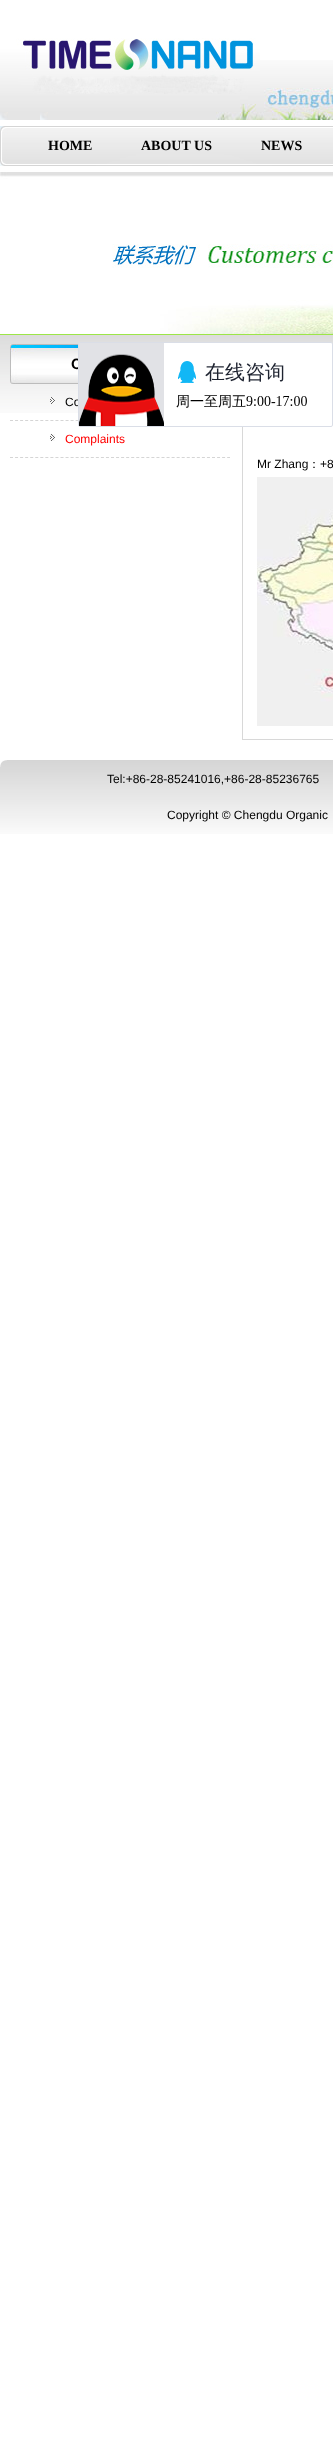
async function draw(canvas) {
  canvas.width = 333;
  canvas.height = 2453;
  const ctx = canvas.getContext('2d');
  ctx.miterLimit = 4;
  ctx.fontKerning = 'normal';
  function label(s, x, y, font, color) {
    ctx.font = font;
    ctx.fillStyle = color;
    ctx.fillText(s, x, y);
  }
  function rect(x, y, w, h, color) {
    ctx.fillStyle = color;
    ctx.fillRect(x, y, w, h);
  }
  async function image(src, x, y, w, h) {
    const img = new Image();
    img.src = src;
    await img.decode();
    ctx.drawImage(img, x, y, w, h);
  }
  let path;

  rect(0, 0, 333, 2453, '#fff');
  await image('assets/img1.png', 0, 60, 333, 60);
  await image('assets/img2.png', 0, 38, 260, 56);
  await image('assets/img3.png', 0, 126, 333, 40);
  label('HOME', 48, 150, 'bold 14px Liberation Serif', '#000');
  label('ABOUT US', 141, 150, 'bold 14px Liberation Serif', '#000');
  label('NEWS', 261, 150, 'bold 14px Liberation Serif', '#000');
  await image('assets/img4.png', 0, 172, 333, 162);
  await image('assets/img6.png', 0, 334, 333, 79);
  await image('assets/img7.png', 10, 344, 68, 40);
  label('C', 71, 369, 'bold 15px Liberation Sans', '#000');
  path = new Path2D('M10 420.5H230');
  ctx.strokeStyle = '#d5d5d5';
  ctx.setLineDash([3, 2.05]);
  ctx.stroke(path);
  label('Co', 65, 406, '12px Liberation Sans', '#000');
  ctx.strokeStyle = '#d8d8d8';
  ctx.setLineDash([]);
  ctx.strokeRect(242.5, 344.5, 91, 395);
  await image('assets/img5.png', 78, 342, 255, 85);
  await image('assets/img8.png', 50, 397, 5, 7);
  await image('assets/img8.png', 50, 434, 5, 7);
  path = new Path2D('M10 457.5H230');
  ctx.strokeStyle = '#d5d5d5';
  ctx.setLineDash([3, 2.05]);
  ctx.stroke(path);
  label('Complaints', 65, 443, '12px Liberation Sans', '#f00');
  label('Mr Zhang', 257, 468, '12px Liberation Sans', '#000');
  label('：', 308, 468, '500 12px WenQuanYi Zen Hei', '#000');
  label('+8', 320, 468, '12px Liberation Sans', '#000');
  await image('assets/img9.png', 257, 477, 76, 249);
  await image('assets/img10.png', 0, 760, 333, 74);
  label('Tel:+86-28-85241016,+86-28-85236765', 107, 783, '12px Liberation Sans', '#000');
  label('Copyright © Chengdu Organic', 167, 819, '12px Liberation Sans', '#000');
}

draw(document.querySelector('canvas'));
